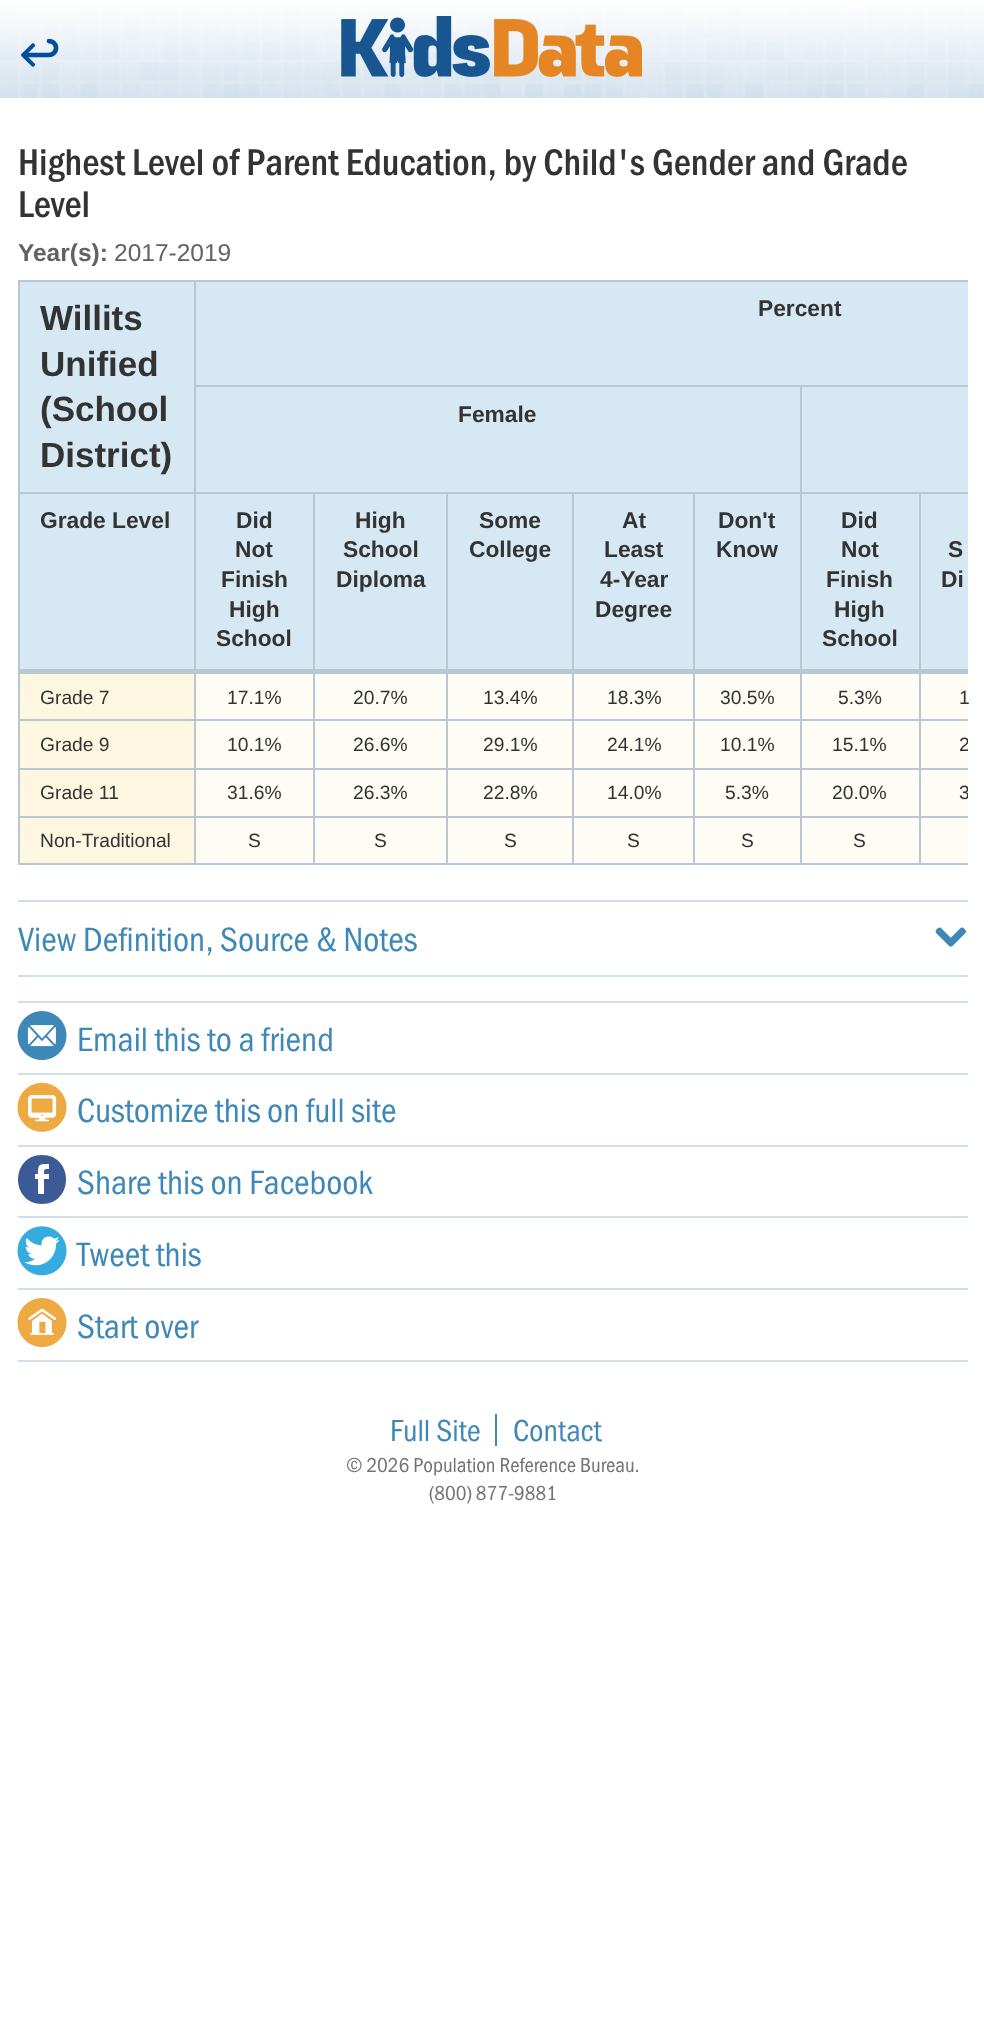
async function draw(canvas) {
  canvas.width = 984;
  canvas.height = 2030;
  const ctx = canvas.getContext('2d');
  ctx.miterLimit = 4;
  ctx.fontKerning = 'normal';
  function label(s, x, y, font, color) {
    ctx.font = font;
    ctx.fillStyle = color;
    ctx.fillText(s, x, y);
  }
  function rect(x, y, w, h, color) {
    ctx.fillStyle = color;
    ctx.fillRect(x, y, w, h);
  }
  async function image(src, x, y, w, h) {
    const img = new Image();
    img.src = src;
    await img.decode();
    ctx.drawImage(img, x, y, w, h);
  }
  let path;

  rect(0, 0, 984, 2030, '#fff');
  await image('assets/img1.png', 0, 0, 984, 98);
  label('<', 21, 65, '28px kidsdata', '#004f98');
  await image('assets/img2.png', 341, 16, 301, 61);
  label('Highest Level of Parent Education, by Child\'s Gender and Grade', 18, 175, '38.5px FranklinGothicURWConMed', '#333');
  label('Level', 18, 217, '38.5px FranklinGothicURWConMed', '#333');
  label('Year(s):', 18, 261, 'bold 24.5px Liberation Sans', '#626262');
  label('2017-2019', 114, 261, '24.5px Liberation Sans', '#626262');
  rect(919, 863, 49, 2, '#b7c8d0');
  rect(919, 816, 2, 49, '#b7c8d0');
  rect(919, 816, 49, 2, '#b7c8d0');
  rect(919, 768, 2, 49, '#b7c8d0');
  rect(919, 768, 49, 2, '#b7c8d0');
  rect(919, 719, 2, 51, '#b7c8d0');
  rect(919, 719, 49, 2, '#b7c8d0');
  rect(919, 492, 2, 229, '#b7c8d0');
  rect(800, 863, 121, 2, '#b7c8d0');
  rect(800, 816, 2, 49, '#b7c8d0');
  rect(800, 816, 121, 2, '#b7c8d0');
  rect(800, 768, 2, 49, '#b7c8d0');
  rect(800, 768, 121, 2, '#b7c8d0');
  rect(800, 719, 2, 51, '#b7c8d0');
  rect(800, 719, 121, 2, '#b7c8d0');
  rect(800, 492, 2, 229, '#b7c8d0');
  rect(693, 863, 109, 2, '#b7c8d0');
  rect(693, 816, 2, 49, '#b7c8d0');
  rect(693, 816, 109, 2, '#b7c8d0');
  rect(693, 768, 2, 49, '#b7c8d0');
  rect(693, 768, 109, 2, '#b7c8d0');
  rect(693, 719, 2, 51, '#b7c8d0');
  rect(693, 719, 109, 2, '#b7c8d0');
  rect(693, 492, 2, 229, '#b7c8d0');
  rect(572, 863, 123, 2, '#b7c8d0');
  rect(572, 816, 2, 49, '#b7c8d0');
  rect(572, 816, 123, 2, '#b7c8d0');
  rect(572, 768, 2, 49, '#b7c8d0');
  rect(572, 768, 123, 2, '#b7c8d0');
  rect(572, 719, 2, 51, '#b7c8d0');
  rect(572, 719, 123, 2, '#b7c8d0');
  rect(572, 492, 2, 229, '#b7c8d0');
  rect(446, 863, 128, 2, '#b7c8d0');
  rect(446, 816, 2, 49, '#b7c8d0');
  rect(446, 816, 128, 2, '#b7c8d0');
  rect(446, 768, 2, 49, '#b7c8d0');
  rect(446, 768, 128, 2, '#b7c8d0');
  rect(446, 719, 2, 51, '#b7c8d0');
  rect(446, 719, 128, 2, '#b7c8d0');
  rect(446, 492, 2, 229, '#b7c8d0');
  rect(313, 863, 135, 2, '#b7c8d0');
  rect(313, 816, 2, 49, '#b7c8d0');
  rect(313, 816, 135, 2, '#b7c8d0');
  rect(313, 768, 2, 49, '#b7c8d0');
  rect(313, 768, 135, 2, '#b7c8d0');
  rect(313, 719, 2, 51, '#b7c8d0');
  rect(313, 719, 135, 2, '#b7c8d0');
  rect(313, 492, 2, 229, '#b7c8d0');
  rect(194, 863, 121, 2, '#b7c8d0');
  rect(194, 816, 2, 49, '#b7c8d0');
  rect(194, 816, 121, 2, '#b7c8d0');
  rect(194, 768, 2, 49, '#b7c8d0');
  rect(194, 768, 121, 2, '#b7c8d0');
  rect(194, 719, 2, 51, '#b7c8d0');
  rect(194, 719, 121, 2, '#b7c8d0');
  rect(194, 492, 2, 229, '#b7c8d0');
  rect(18, 863, 178, 2, '#b7c8d0');
  rect(18, 816, 2, 49, '#b7c8d0');
  rect(18, 816, 178, 2, '#b7c8d0');
  rect(18, 768, 2, 49, '#b7c8d0');
  rect(18, 768, 178, 2, '#b7c8d0');
  rect(18, 719, 2, 51, '#b7c8d0');
  rect(18, 719, 178, 2, '#b7c8d0');
  rect(18, 492, 2, 229, '#b7c8d0');
  rect(18, 669, 950, 5, '#b7c8d0');
  rect(20, 282, 174, 210, '#d6e8f3');
  rect(194, 280, 774, 2, '#b7c8d0');
  rect(800, 492, 168, 2, '#b7c8d0');
  rect(800, 385, 2, 109, '#b7c8d0');
  rect(194, 492, 608, 2, '#b7c8d0');
  rect(194, 385, 2, 109, '#b7c8d0');
  rect(194, 385, 774, 2, '#b7c8d0');
  rect(194, 280, 2, 107, '#b7c8d0');
  rect(18, 280, 178, 2, '#b7c8d0');
  rect(18, 492, 178, 2, '#b7c8d0');
  rect(18, 280, 2, 214, '#b7c8d0');
  label('Willits', 40, 330, 'bold 35px Liberation Sans', '#333');
  label('Unified', 40, 376, 'bold 35px Liberation Sans', '#333');
  label('(School', 40, 421, 'bold 35px Liberation Sans', '#333');
  label('District)', 40, 467, 'bold 35px Liberation Sans', '#333');
  rect(196, 282, 772, 103, '#d6e8f3');
  label('Percent', 758, 316, 'bold 22.75px Liberation Sans', '#333');
  rect(196, 387, 604, 105, '#d6e8f3');
  label('Female', 458, 422, 'bold 22.75px Liberation Sans', '#333');
  rect(802, 387, 166, 105, '#d6e8f3');
  rect(20, 494, 174, 175, '#d6e8f3');
  label('Grade Level', 40, 528, 'bold 22.75px Liberation Sans', '#333');
  rect(196, 494, 117, 175, '#d6e8f3');
  label('Did', 236, 528, 'bold 22.75px Liberation Sans', '#333');
  label('Not', 235, 557, 'bold 22.75px Liberation Sans', '#333');
  label('Finish', 221, 587, 'bold 22.75px Liberation Sans', '#333');
  label('High', 229, 617, 'bold 22.75px Liberation Sans', '#333');
  label('School', 216, 646, 'bold 22.75px Liberation Sans', '#333');
  rect(315, 494, 131, 175, '#d6e8f3');
  label('High', 355, 528, 'bold 22.75px Liberation Sans', '#333');
  label('School', 343, 557, 'bold 22.75px Liberation Sans', '#333');
  label('Diploma', 336, 587, 'bold 22.75px Liberation Sans', '#333');
  rect(448, 494, 124, 175, '#d6e8f3');
  label('Some', 479, 528, 'bold 22.75px Liberation Sans', '#333');
  label('College', 469, 557, 'bold 22.75px Liberation Sans', '#333');
  rect(574, 494, 119, 175, '#d6e8f3');
  label('At', 622, 528, 'bold 22.75px Liberation Sans', '#333');
  label('Least', 604, 557, 'bold 22.75px Liberation Sans', '#333');
  label('4-Year', 600, 587, 'bold 22.75px Liberation Sans', '#333');
  label('Degree', 595, 617, 'bold 22.75px Liberation Sans', '#333');
  rect(695, 494, 105, 175, '#d6e8f3');
  label('Don\'t', 718, 528, 'bold 22.75px Liberation Sans', '#333');
  label('Know', 716, 557, 'bold 22.75px Liberation Sans', '#333');
  rect(802, 494, 117, 175, '#d6e8f3');
  label('Did', 841, 528, 'bold 22.75px Liberation Sans', '#333');
  label('Not', 841, 557, 'bold 22.75px Liberation Sans', '#333');
  label('Finish', 826, 587, 'bold 22.75px Liberation Sans', '#333');
  label('High', 834, 617, 'bold 22.75px Liberation Sans', '#333');
  label('School', 822, 646, 'bold 22.75px Liberation Sans', '#333');
  rect(921, 494, 47, 175, '#d6e8f3');
  label('S', 948, 557, 'bold 22.75px Liberation Sans', '#333');
  label('Di', 941, 587, 'bold 22.75px Liberation Sans', '#333');
  rect(20, 674, 174, 45, '#fdf7e1');
  label('Grade 7', 40, 704, '19.25px Liberation Sans', '#333');
  rect(196, 674, 117, 45, '#fefcf4');
  label('17.1%', 227, 704, '19.25px Liberation Sans', '#333');
  rect(315, 674, 131, 45, '#fefcf4');
  label('20.7%', 353, 704, '19.25px Liberation Sans', '#333');
  rect(448, 674, 124, 45, '#fefcf4');
  label('13.4%', 483, 704, '19.25px Liberation Sans', '#333');
  rect(574, 674, 119, 45, '#fefcf4');
  label('18.3%', 607, 704, '19.25px Liberation Sans', '#333');
  rect(695, 674, 105, 45, '#fefcf4');
  label('30.5%', 720, 704, '19.25px Liberation Sans', '#333');
  rect(802, 674, 117, 45, '#fefcf4');
  label('5.3%', 838, 704, '19.25px Liberation Sans', '#333');
  rect(921, 674, 47, 45, '#fefcf4');
  label('1', 959, 704, '19.25px Liberation Sans', '#333');
  rect(20, 721, 174, 47, '#fdf7e1');
  label('Grade 9', 40, 751, '19.25px Liberation Sans', '#333');
  rect(196, 721, 117, 47, '#fefcf4');
  label('10.1%', 227, 751, '19.25px Liberation Sans', '#333');
  rect(315, 721, 131, 47, '#fefcf4');
  label('26.6%', 353, 751, '19.25px Liberation Sans', '#333');
  rect(448, 721, 124, 47, '#fefcf4');
  label('29.1%', 483, 751, '19.25px Liberation Sans', '#333');
  rect(574, 721, 119, 47, '#fefcf4');
  label('24.1%', 607, 751, '19.25px Liberation Sans', '#333');
  rect(695, 721, 105, 47, '#fefcf4');
  label('10.1%', 720, 751, '19.25px Liberation Sans', '#333');
  rect(802, 721, 117, 47, '#fefcf4');
  label('15.1%', 832, 751, '19.25px Liberation Sans', '#333');
  rect(921, 721, 47, 47, '#fefcf4');
  ctx.save();
  ctx.beginPath();
  ctx.rect(18, 280, 950, 620);
  ctx.clip();
  label('2', 959, 751, '19.25px Liberation Sans', '#333');
  ctx.restore();
  rect(20, 770, 174, 46, '#fdf7e1');
  label('Grade 11', 40, 799, '19.25px Liberation Sans', '#333');
  rect(196, 770, 117, 46, '#fefcf4');
  label('31.6%', 227, 799, '19.25px Liberation Sans', '#333');
  rect(315, 770, 131, 46, '#fefcf4');
  label('26.3%', 353, 799, '19.25px Liberation Sans', '#333');
  rect(448, 770, 124, 46, '#fefcf4');
  label('22.8%', 483, 799, '19.25px Liberation Sans', '#333');
  rect(574, 770, 119, 46, '#fefcf4');
  label('14.0%', 607, 799, '19.25px Liberation Sans', '#333');
  rect(695, 770, 105, 46, '#fefcf4');
  label('5.3%', 725, 799, '19.25px Liberation Sans', '#333');
  rect(802, 770, 117, 46, '#fefcf4');
  label('20.0%', 832, 799, '19.25px Liberation Sans', '#333');
  rect(921, 770, 47, 46, '#fefcf4');
  ctx.save();
  ctx.beginPath();
  ctx.rect(18, 280, 950, 620);
  ctx.clip();
  label('3', 959, 799, '19.25px Liberation Sans', '#333');
  ctx.restore();
  rect(20, 818, 174, 45, '#fdf7e1');
  label('Non-Traditional', 40, 847, '19.25px Liberation Sans', '#333');
  rect(196, 818, 117, 45, '#fefcf4');
  label('S', 248, 847, '19.25px Liberation Sans', '#333');
  rect(315, 818, 131, 45, '#fefcf4');
  label('S', 374, 847, '19.25px Liberation Sans', '#333');
  rect(448, 818, 124, 45, '#fefcf4');
  label('S', 504, 847, '19.25px Liberation Sans', '#333');
  rect(574, 818, 119, 45, '#fefcf4');
  label('S', 627, 847, '19.25px Liberation Sans', '#333');
  rect(695, 818, 105, 45, '#fefcf4');
  label('S', 741, 847, '19.25px Liberation Sans', '#333');
  rect(802, 818, 117, 45, '#fefcf4');
  label('S', 853, 847, '19.25px Liberation Sans', '#333');
  rect(921, 818, 47, 45, '#fefcf4');
  rect(18, 975, 950, 2, '#d1deec');
  rect(18, 900, 950, 2, '#d1deec');
  label('View Definition, Source & Notes', 18, 951, '35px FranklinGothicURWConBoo', '#3e88b8');
  await image('assets/img3.png', 935, 927, 31, 20);
  rect(18, 1360, 950, 2, '#d1deec');
  rect(18, 1001, 950, 2, '#d1deec');
  await image('assets/img4.png', 17, 1011, 50, 50);
  label('Email this to a friend', 77, 1051, '35px FranklinGothicURWConBoo', '#3e88b8');
  rect(18, 1073, 950, 2, '#d1deec');
  await image('assets/img5.png', 17, 1082, 50, 50);
  label('Customize this on full site', 77, 1122, '35px FranklinGothicURWConBoo', '#3e88b8');
  rect(18, 1145, 950, 2, '#d1deec');
  ctx.fillStyle = '#3c5a96';
  path = new Path2D('M42 1155C10 1155 10 1204 42 1204C74 1204 74 1155 42 1155ZM49 1169C44 1169 44 1169 44 1174H49V1179H44V1194H38V1179H35V1174H38C38 1164 39 1164 49 1164Z');
  ctx.fill(path);
  label('Share this on Facebook', 77, 1194, '35px FranklinGothicURWConBoo', '#3e88b8');
  rect(18, 1216, 950, 2, '#d1deec');
  await image('assets/img6.png', 17, 1226, 50, 50);
  label('Tweet this', 77, 1266, '35px FranklinGothicURWConBoo', '#3e88b8');
  rect(18, 1288, 950, 2, '#d1deec');
  await image('assets/img7.png', 17, 1298, 50, 50);
  label('Start over', 77, 1338, '35px FranklinGothicURWConBoo', '#3e88b8');
  label('Full Site', 390, 1441, '31.5px FranklinGothicURWConBoo', '#3e88b8');
  rect(495, 1414, 2, 32, '#3e88b8');
  label('Contact', 513, 1441, '31.5px FranklinGothicURWConBoo', '#3e88b8');
  label('© 2026 Population Reference Bureau.', 346, 1472, '21px FranklinGothicURWConBoo', '#737373');
  label('(800) 877-9881', 429, 1500, '21px FranklinGothicURWConBoo', '#737373');
}

draw(document.querySelector('canvas'));
